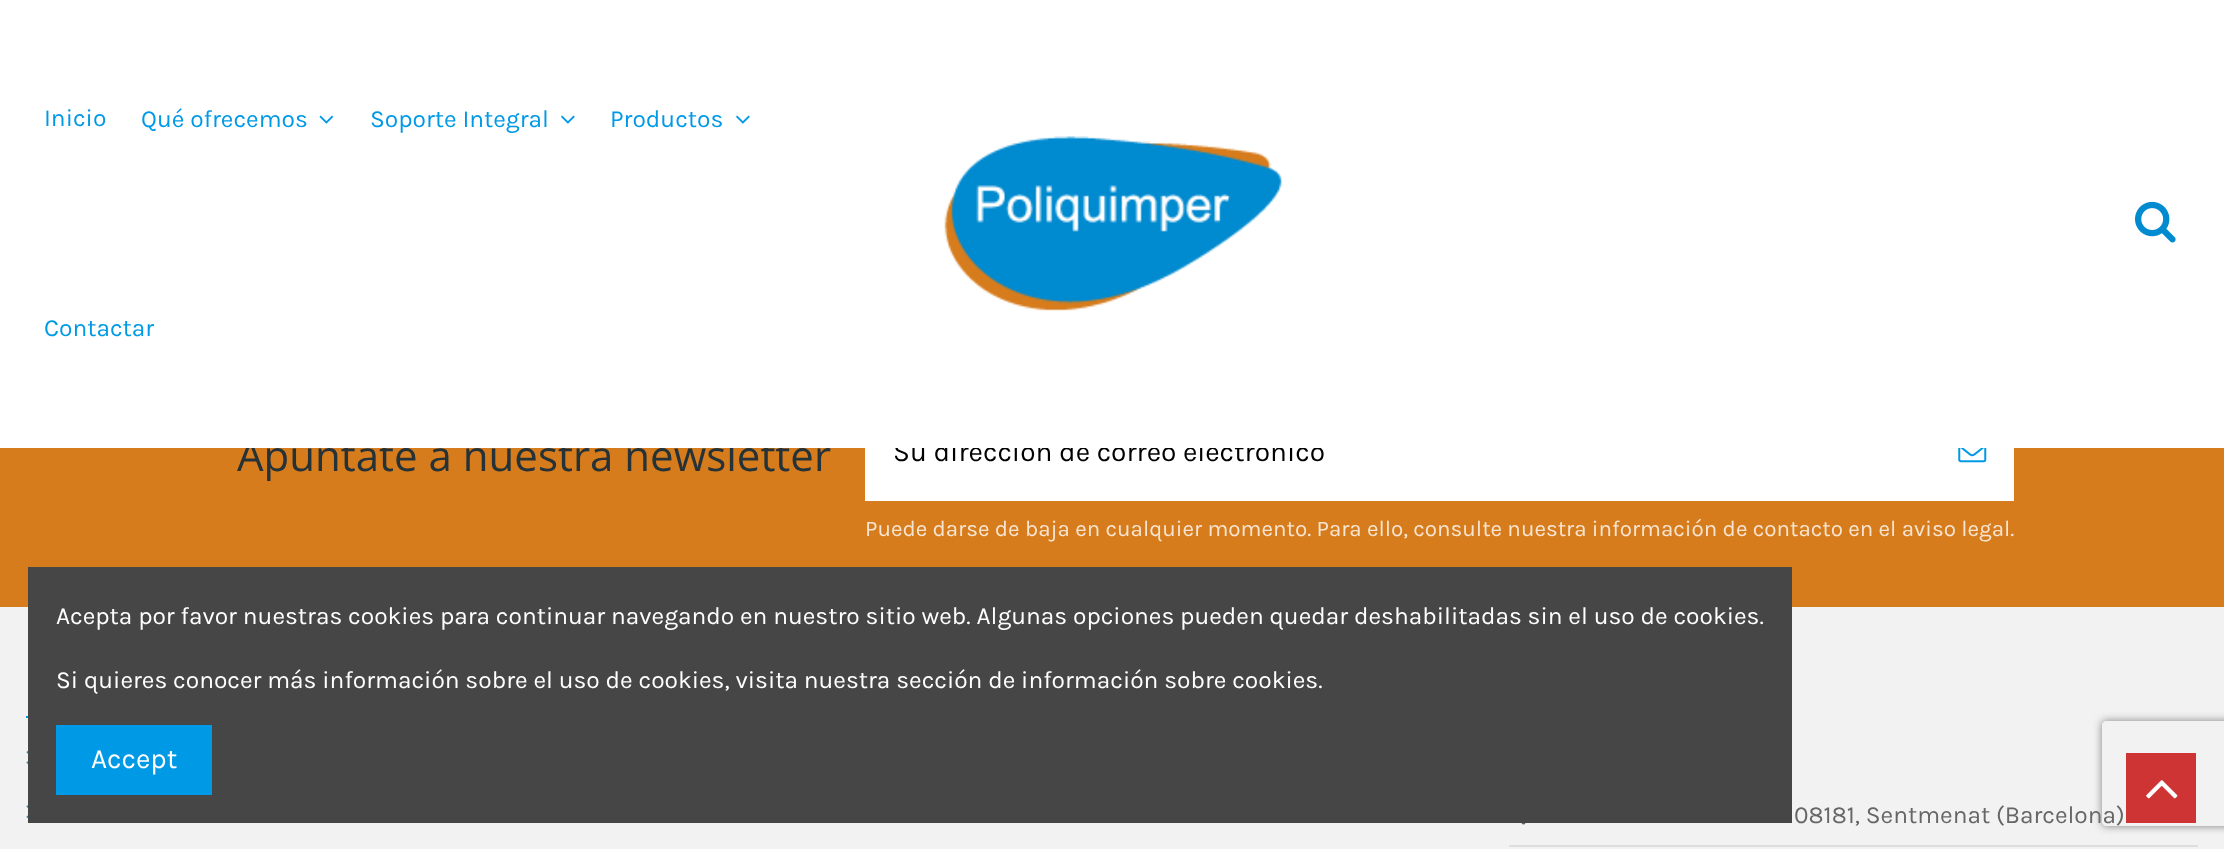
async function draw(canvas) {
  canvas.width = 2224;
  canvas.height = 849;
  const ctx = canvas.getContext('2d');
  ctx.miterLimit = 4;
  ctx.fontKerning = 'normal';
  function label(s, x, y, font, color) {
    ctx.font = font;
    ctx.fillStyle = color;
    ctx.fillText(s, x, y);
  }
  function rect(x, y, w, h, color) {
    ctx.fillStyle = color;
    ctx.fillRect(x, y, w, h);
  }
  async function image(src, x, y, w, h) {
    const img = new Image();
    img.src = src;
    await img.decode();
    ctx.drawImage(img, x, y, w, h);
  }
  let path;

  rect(0, 0, 2224, 849, '#f2f2f2');
  rect(0, 448, 2224, 159, '#d67c1c');
  label('Apúntate a nuestra newsletter', 237, 471, '42px Open Sans', '#253237');
  rect(865, 448, 1149, 53, '#fff');
  label('Su dirección de correo electrónico', 893, 461, '28px Karla', '#000');
  rect(0, 0, 2224, 448, '#fff');
  label('Inicio', 44, 126, '24.5px Karla', '#0099e6');
  label('Qué ofrecemos', 141, 127, '24.5px Karla', '#0099e6');
  await image('assets/img1.png', 319, 115, 15, 9);
  label('Soporte Integral', 370, 127, '24.5px Karla', '#0099e6');
  await image('assets/img2.png', 561, 115, 14, 9);
  label('Productos', 610, 127, '24.5px Karla', '#0099e6');
  await image('assets/img2.png', 736, 115, 14, 9);
  label('Contactar', 44, 336, '24.5px Karla', '#0099e6');
  await image('assets/img3.png', 944, 136, 338, 175);
  await image('assets/img4.png', 2135, 201, 41, 42);
  await image('assets/img5.png', 1958, 448, 29, 15);
  label('Puede darse de baja en cualquier momento. Para ello, consulte nuestra información de contacto en el aviso legal.', 865, 536, '22.4px Karla', '#f7e5d2');
  rect(26, 716, 2, 2, '#0099e6');
  await image('assets/img6.png', 26, 751, 2, 13);
  await image('assets/img7.png', 26, 805, 2, 13);
  await image('assets/img8.png', 1521, 823, 5, 2);
  label('08181, Sentmenat (Barcelona)', 1794, 823, '24.5px Karla', '#666');
  rect(1509, 845, 689, 2, '#dedede');
  rect(28, 567, 1764, 256, '#464646');
  label('Acepta por favor nuestras cookies para continuar navegando en nuestro sitio web. Algunas opciones pueden quedar deshabilitadas sin el uso de cookies.', 56, 624, '24.5px Karla', '#fff');
  label('Si quieres conocer más información sobre el uso de cookies, visita nuestra sección de información sobre cookies.', 56, 688, '24.5px Karla', '#fff');
  rect(56, 725, 156, 70, '#0099e6');
  label('Accept', 91, 768, '28px Karla', '#fff');
  ctx.save();
  path = new Path2D('M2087 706H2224V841H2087ZM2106 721H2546C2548 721 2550 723 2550 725V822C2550 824 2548 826 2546 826H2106C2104 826 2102 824 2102 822V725C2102 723 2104 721 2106 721Z');
  ctx.clip(path, 'evenodd');
  ctx.fillStyle = '#808080';
  ctx.filter = 'blur(4.5px)';
  ctx.beginPath();
  ctx.roundRect(2102, 721, 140, 105, 4);
  ctx.fill();
  ctx.filter = 'none';
  ctx.restore();
  rect(2126, 753, 70, 70, '#cf3434');
  await image('assets/img9.png', 2146, 780, 32, 19);
}

draw(document.querySelector('canvas'));
